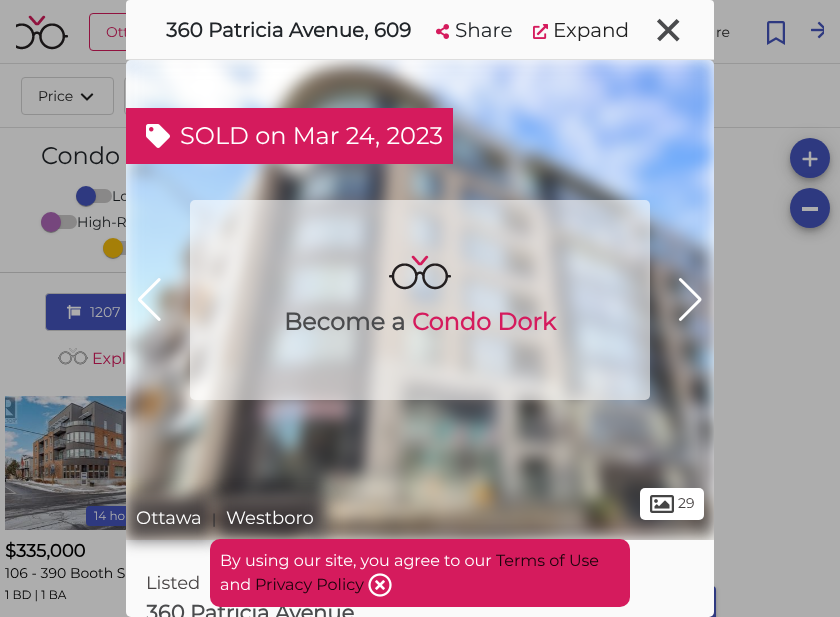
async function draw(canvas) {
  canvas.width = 840;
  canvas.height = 617;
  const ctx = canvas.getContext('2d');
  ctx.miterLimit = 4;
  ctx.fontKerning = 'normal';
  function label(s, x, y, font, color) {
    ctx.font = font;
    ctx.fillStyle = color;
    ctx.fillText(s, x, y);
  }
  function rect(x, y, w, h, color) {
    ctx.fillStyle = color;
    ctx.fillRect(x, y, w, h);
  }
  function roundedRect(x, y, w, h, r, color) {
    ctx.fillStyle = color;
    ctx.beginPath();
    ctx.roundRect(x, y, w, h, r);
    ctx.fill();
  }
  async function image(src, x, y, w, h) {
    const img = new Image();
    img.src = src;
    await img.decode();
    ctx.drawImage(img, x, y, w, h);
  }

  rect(0, 0, 840, 617, '#adadad');
  rect(0, 127, 840, 1, '#989898');
  ctx.beginPath();
  ctx.roundRect(21.5, 77.5, 92, 37, 3.5);
  ctx.strokeStyle = '#8f8f8f';
  ctx.stroke();
  label('Price', 38, 101, '100 14px Montserrat', '#161616');
  await image('assets/img1.png', 80, 93, 14, 8);
  ctx.beginPath();
  ctx.roundRect(124.5, 77.5, 84, 37, 3.5);
  ctx.stroke();
  label('Condo', 41, 164, '100 24px Montserrat', '#16191c');
  rect(0, 272, 126, 1, '#8f8f8f');
  roundedRect(76, 189, 36, 14, 7, '#898888');
  ctx.fillStyle = '#0000001f';
  ctx.filter = 'blur(1.5px)';
  ctx.beginPath();
  ctx.roundRect(76, 187, 20, 20, 10);
  ctx.fill();
  ctx.filter = 'none';
  ctx.fillStyle = '#00000024';
  ctx.filter = 'blur(0.5px)';
  ctx.beginPath();
  ctx.roundRect(76, 187, 20, 20, 10);
  ctx.fill();
  ctx.filter = 'none';
  ctx.fillStyle = '#00000033';
  ctx.filter = 'blur(0.5px)';
  ctx.beginPath();
  ctx.roundRect(77, 189, 18, 18, 9);
  ctx.fill();
  ctx.filter = 'none';
  ctx.fillStyle = '#2e3980';
  ctx.beginPath();
  ctx.arc(86, 196, 10, 0, 2 * Math.PI);
  ctx.fill();
  label('Lo', 112, 201, '100 14px Montserrat', '#16191c');
  roundedRect(41, 215, 36, 14, 7, '#898888');
  ctx.fillStyle = '#0000001f';
  ctx.filter = 'blur(1.5px)';
  ctx.beginPath();
  ctx.roundRect(41, 213, 20, 20, 10);
  ctx.fill();
  ctx.filter = 'none';
  ctx.fillStyle = '#00000024';
  ctx.filter = 'blur(0.5px)';
  ctx.beginPath();
  ctx.roundRect(41, 213, 20, 20, 10);
  ctx.fill();
  ctx.filter = 'none';
  ctx.fillStyle = '#00000033';
  ctx.filter = 'blur(0.5px)';
  ctx.beginPath();
  ctx.roundRect(42, 215, 18, 18, 9);
  ctx.fill();
  ctx.filter = 'none';
  ctx.fillStyle = '#76467d';
  ctx.beginPath();
  ctx.arc(51, 222, 10, 0, 2 * Math.PI);
  ctx.fill();
  label('High-R', 77, 227, '100 14px Montserrat', '#16191c');
  roundedRect(103, 241, 36, 14, 7, '#898888');
  ctx.fillStyle = '#0000001f';
  ctx.filter = 'blur(1.5px)';
  ctx.beginPath();
  ctx.roundRect(103, 239, 20, 20, 10);
  ctx.fill();
  ctx.filter = 'none';
  ctx.fillStyle = '#00000024';
  ctx.filter = 'blur(0.5px)';
  ctx.beginPath();
  ctx.roundRect(103, 239, 20, 20, 10);
  ctx.fill();
  ctx.filter = 'none';
  ctx.fillStyle = '#00000033';
  ctx.filter = 'blur(0.5px)';
  ctx.beginPath();
  ctx.roundRect(104, 241, 18, 18, 9);
  ctx.fill();
  ctx.filter = 'none';
  ctx.fillStyle = '#a57f08';
  ctx.beginPath();
  ctx.arc(113, 248, 10, 0, 2 * Math.PI);
  ctx.fill();
  ctx.fillStyle = '#2e3980';
  ctx.beginPath();
  ctx.roundRect(45.5, 293.5, 149, 37, 3.5);
  ctx.fill();
  ctx.stroke();
  await image('assets/img2.png', 67, 305, 14, 14);
  label('1207', 90, 317, '100 14px Montserrat', '#adadad');
  await image('assets/img3.png', 58, 348, 30, 17);
  label('Expl', 92, 364, '100 16px Montserrat', '#91123f');
  await image('assets/img4.png', 5, 396, 121, 134);
  roundedRect(86, 506, 92, 20, 4, '#2e3980');
  label('14 ho', 94, 520, '100 12px Montserrat', '#adadad');
  label('$335,000', 5, 557, 'bold 18px Montserrat', '#000');
  label('106 - 390 Booth S', 5, 578, '100 14px Montserrat', '#000');
  label('1 BD | 1 BA', 5, 599, '100 12px Montserrat', '#000');
  ctx.fillStyle = '#0000001f';
  ctx.filter = 'blur(9px)';
  ctx.beginPath();
  ctx.roundRect(790, 139, 40, 40, 20);
  ctx.fill();
  ctx.filter = 'none';
  ctx.fillStyle = '#00000024';
  ctx.filter = 'blur(5px)';
  ctx.beginPath();
  ctx.roundRect(790, 144, 40, 40, 20);
  ctx.fill();
  ctx.filter = 'none';
  ctx.fillStyle = '#00000033';
  ctx.filter = 'blur(2.5px)';
  ctx.beginPath();
  ctx.roundRect(791, 142, 38, 38, 19);
  ctx.fill();
  ctx.filter = 'none';
  ctx.fillStyle = '#2e3980';
  ctx.beginPath();
  ctx.arc(810, 158, 20, 0, 2 * Math.PI);
  ctx.fill();
  await image('assets/img5.png', 802, 151, 16, 16);
  ctx.fillStyle = '#0000001f';
  ctx.filter = 'blur(9px)';
  ctx.beginPath();
  ctx.roundRect(790, 189, 40, 40, 20);
  ctx.fill();
  ctx.filter = 'none';
  ctx.fillStyle = '#00000024';
  ctx.filter = 'blur(5px)';
  ctx.beginPath();
  ctx.roundRect(790, 194, 40, 40, 20);
  ctx.fill();
  ctx.filter = 'none';
  ctx.fillStyle = '#00000033';
  ctx.filter = 'blur(2.5px)';
  ctx.beginPath();
  ctx.roundRect(791, 192, 38, 38, 19);
  ctx.fill();
  ctx.filter = 'none';
  ctx.fillStyle = '#2e3980';
  ctx.beginPath();
  ctx.arc(810, 208, 20, 0, 2 * Math.PI);
  ctx.fill();
  rect(802, 207, 16, 4, '#adadad');
  ctx.fillStyle = '#0000001f';
  ctx.filter = 'blur(2.5px)';
  ctx.beginPath();
  ctx.roundRect(573, 587, 143, 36, 4);
  ctx.fill();
  ctx.filter = 'none';
  ctx.fillStyle = '#00000024';
  ctx.filter = 'blur(1px)';
  ctx.beginPath();
  ctx.roundRect(573, 588, 143, 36, 4);
  ctx.fill();
  ctx.filter = 'none';
  ctx.fillStyle = '#2e3980';
  ctx.beginPath();
  ctx.roundRect(573, 586, 143, 31, [4, 4, 0, 0]);
  ctx.fill();
  ctx.beginPath();
  ctx.roundRect(89.5, 13.5, 112, 37, 3.5);
  ctx.strokeStyle = '#91123f';
  ctx.stroke();
  label('Ott', 106, 37, '100 14px Montserrat', '#91123f');
  ctx.fillStyle = '#fafafa';
  ctx.beginPath();
  ctx.roundRect(126, 0, 588, 60, [4, 4, 0, 0]);
  ctx.fill();
  rect(126, 59, 588, 1, '#ddd');
  label('360 Patricia Avenue, 609', 166, 37, 'bold 20px Montserrat', '#212529');
  await image('assets/img6.png', 436, 24, 13, 15);
  label('Share', 455, 37, '100 20px Montserrat', '#212529');
  await image('assets/img7.png', 533, 24, 15, 15);
  label('Expand', 553, 37, '100 20px Montserrat', '#212121');
  ctx.font = '100 65px Montserrat';
  ctx.fillStyle = '#4a4b4d';
  ctx.save();
  ctx.translate(639, 33);
  ctx.rotate(45 * Math.PI / 180);
  ctx.fillText('+', 0, 0);
  ctx.restore();
  rect(0, 63, 840, 1, '#989898');
  roundedRect(126, 60, 588, 557, 5, '#fafafa');
  await image('assets/img8.png', 126, 60, 588, 480);
  await image('assets/img9.png', 138, 278, 23, 43);
  await image('assets/img10.png', 678, 278, 24, 43);
  rect(126, 108, 327, 56, '#d51b5d');
  await image('assets/img11.png', 146, 124, 24, 24);
  label('SOLD on Mar 24, 2023', 180, 144, '100 24px Montserrat', '#fff');
  roundedRect(190, 200, 460, 200, 5, '#ffffff99');
  await image('assets/img12.png', 389, 255, 62, 35);
  label('Become a', 284, 330, 'bold 24px Montserrat', '#4a4b4d');
  label('Condo Dork', 412, 330, 'bold 24px Montserrat', '#d51b5d');
  roundedRect(640, 488, 64, 32, 5, '#fff');
  await image('assets/img13.png', 650, 495, 24, 18);
  label('29', 678, 508, '100 14px Montserrat', '#464242');
  ctx.save();
  ctx.beginPath();
  ctx.roundRect(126, 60, 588, 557, 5);
  ctx.clip();
  ctx.fillStyle = '#2d2c31cc';
  ctx.filter = 'blur(8px)';
  ctx.beginPath();
  ctx.rect(126, 497, 86, 42);
  ctx.fill();
  ctx.filter = 'none';
  ctx.restore();
  label('Ottawa', 136, 524, '100 18px Montserrat', '#fff');
  label('|', 212, 524, '100 14px Montserrat', '#212529');
  ctx.fillStyle = '#2d2c31cc';
  ctx.filter = 'blur(8px)';
  ctx.beginPath();
  ctx.rect(216, 497, 108, 42);
  ctx.fill();
  ctx.filter = 'none';
  label('Westboro', 226, 524, '100 18px Montserrat', '#fff');
  label('Listed', 146, 589, '100 18px Montserrat', '#464242');
  label('360 Patricia Avenue', 146, 620, 'bold 21px Montserrat', '#4a4b4d');
  await image('assets/img14.png', 16, 15, 52, 35);
  label('re', 716, 37, '100 14px Montserrat', '#161616');
  await image('assets/img15.png', 767, 21, 18, 24);
  await image('assets/img16.png', 811, 21, 13, 18);
  roundedRect(210, 539, 420, 68, 10, '#d51b5d');
  label('By using our site, you agree to our', 220, 566, '100 16px Montserrat', '#fff');
  label('Terms of Use', 496, 566, '100 16px Montserrat', '#1c040c');
  label('and', 220, 590, '100 16px Montserrat', '#fff');
  label('Privacy Policy', 255, 590, '100 16px Montserrat', '#1c040c');
  await image('assets/img17.png', 368, 573, 24, 24);
}

draw(document.querySelector('canvas'));
